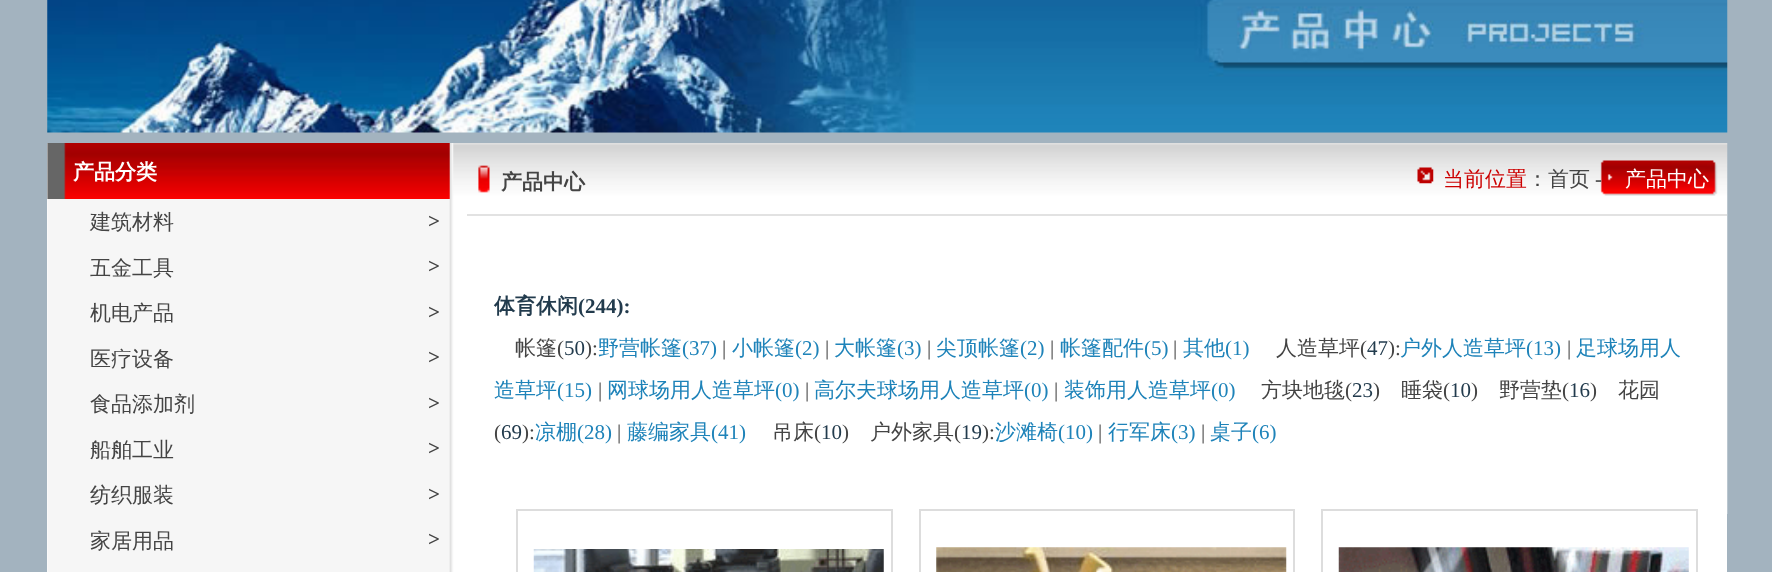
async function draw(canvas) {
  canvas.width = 1772;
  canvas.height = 572;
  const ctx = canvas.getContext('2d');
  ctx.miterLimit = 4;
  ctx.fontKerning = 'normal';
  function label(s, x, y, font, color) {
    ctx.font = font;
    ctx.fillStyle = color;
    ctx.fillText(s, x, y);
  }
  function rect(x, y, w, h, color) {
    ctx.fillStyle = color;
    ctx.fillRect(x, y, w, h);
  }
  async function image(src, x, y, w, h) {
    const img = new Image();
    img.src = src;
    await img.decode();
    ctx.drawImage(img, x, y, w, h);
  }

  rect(0, 0, 1772, 572, '#a3b3bf');
  await image('assets/img1.png', 47, 0, 1681, 133);
  rect(47, 144, 1680, 428, '#fff');
  await image('assets/img2.png', 47, 143, 1681, 371);
  await image('assets/img3.png', 47, 143, 407, 429);
  await image('assets/img4.png', 47, 143, 403, 56);
  label('产品分类', 73, 179, 'bold 21px WenQuanYi Zen Hei', '#fff');
  label('建筑材料', 90, 229, '500 21px WenQuanYi Zen Hei', '#444');
  label('>', 428, 228, 'bold 21px Liberation Serif', '#444');
  label('五金工具', 90, 275, '500 21px WenQuanYi Zen Hei', '#444');
  label('>', 428, 273, 'bold 21px Liberation Serif', '#444');
  label('机电产品', 90, 320, '500 21px WenQuanYi Zen Hei', '#444');
  label('>', 428, 319, 'bold 21px Liberation Serif', '#444');
  label('医疗设备', 90, 366, '500 21px WenQuanYi Zen Hei', '#444');
  label('>', 428, 364, 'bold 21px Liberation Serif', '#444');
  label('食品添加剂', 90, 411, '500 21px WenQuanYi Zen Hei', '#444');
  label('>', 428, 410, 'bold 21px Liberation Serif', '#444');
  label('船舶工业', 90, 457, '500 21px WenQuanYi Zen Hei', '#444');
  label('>', 428, 455, 'bold 21px Liberation Serif', '#444');
  label('纺织服装', 90, 502, '500 21px WenQuanYi Zen Hei', '#444');
  label('>', 428, 501, 'bold 21px Liberation Serif', '#444');
  label('家居用品', 90, 548, '500 21px WenQuanYi Zen Hei', '#444');
  label('>', 428, 546, 'bold 21px Liberation Serif', '#444');
  await image('assets/img5.png', 1600, 160, 118, 36);
  rect(467, 214, 1260, 2, '#e2e2e2');
  await image('assets/img6.png', 478, 165, 12, 28);
  label('产品中心', 501, 189, 'bold 21px WenQuanYi Zen Hei', '#444');
  await image('assets/img7.png', 1417, 167, 17, 17);
  label('当前位置', 1443, 186, '500 21px WenQuanYi Zen Hei', '#c00');
  label('：首页', 1527, 186, '500 21px WenQuanYi Zen Hei', '#444');
  label('-', 1595, 186, '21px Liberation Serif', '#444');
  label('产品中心', 1625, 186, '500 21px WenQuanYi Zen Hei', '#fff');
  label('体育休闲', 494, 313, 'bold 21px WenQuanYi Zen Hei', '#223b4d');
  label('(244):', 578, 313, 'bold 21px Liberation Serif', '#223b4d');
  label('帐篷', 515, 355, '500 21px WenQuanYi Zen Hei', '#444');
  label('(', 557, 355, '21px Liberation Serif', '#444');
  label('50', 564, 355, '21px Liberation Serif', '#223b4d');
  label('):', 585, 355, '21px Liberation Serif', '#444');
  label('野营帐篷', 598, 355, '500 21px WenQuanYi Zen Hei', '#1e83b9');
  label('(37)', 682, 355, '21px Liberation Serif', '#1e83b9');
  label('|', 722, 355, '21px Liberation Serif', '#444');
  label('小帐篷', 732, 355, '500 21px WenQuanYi Zen Hei', '#1e83b9');
  label('(2)', 795, 355, '21px Liberation Serif', '#1e83b9');
  label('|', 825, 355, '21px Liberation Serif', '#444');
  label('大帐篷', 834, 355, '500 21px WenQuanYi Zen Hei', '#1e83b9');
  label('(3)', 897, 355, '21px Liberation Serif', '#1e83b9');
  label('|', 927, 355, '21px Liberation Serif', '#444');
  label('尖顶帐篷', 936, 355, '500 21px WenQuanYi Zen Hei', '#1e83b9');
  label('(2)', 1020, 355, '21px Liberation Serif', '#1e83b9');
  label('|', 1050, 355, '21px Liberation Serif', '#444');
  label('帐篷配件', 1060, 355, '500 21px WenQuanYi Zen Hei', '#1e83b9');
  label('(5)', 1144, 355, '21px Liberation Serif', '#1e83b9');
  label('|', 1173, 355, '21px Liberation Serif', '#444');
  label('其他', 1183, 355, '500 21px WenQuanYi Zen Hei', '#1e83b9');
  label('(1)', 1225, 355, '21px Liberation Serif', '#1e83b9');
  label('人造草坪', 1276, 355, '500 21px WenQuanYi Zen Hei', '#444');
  label('(', 1360, 355, '21px Liberation Serif', '#444');
  label('47', 1367, 355, '21px Liberation Serif', '#223b4d');
  label('):', 1388, 355, '21px Liberation Serif', '#444');
  label('户外人造草坪', 1400, 355, '500 21px WenQuanYi Zen Hei', '#1e83b9');
  label('(13)', 1526, 355, '21px Liberation Serif', '#1e83b9');
  label('|', 1567, 355, '21px Liberation Serif', '#444');
  label('足球场用人', 1576, 355, '500 21px WenQuanYi Zen Hei', '#1e83b9');
  label('造草坪', 494, 397, '500 21px WenQuanYi Zen Hei', '#1e83b9');
  label('(15)', 557, 397, '21px Liberation Serif', '#1e83b9');
  label('|', 598, 397, '21px Liberation Serif', '#444');
  label('网球场用人造草坪', 607, 397, '500 21px WenQuanYi Zen Hei', '#1e83b9');
  label('(0)', 775, 397, '21px Liberation Serif', '#1e83b9');
  label('|', 805, 397, '21px Liberation Serif', '#444');
  label('高尔夫球场用人造草坪', 814, 397, '500 21px WenQuanYi Zen Hei', '#1e83b9');
  label('(0)', 1024, 397, '21px Liberation Serif', '#1e83b9');
  label('|', 1054, 397, '21px Liberation Serif', '#444');
  label('装饰用人造草坪', 1064, 397, '500 21px WenQuanYi Zen Hei', '#1e83b9');
  label('(0)', 1211, 397, '21px Liberation Serif', '#1e83b9');
  label('方块地毯', 1261, 397, '500 21px WenQuanYi Zen Hei', '#444');
  label('(', 1345, 397, '21px Liberation Serif', '#444');
  label('23', 1352, 397, '21px Liberation Serif', '#223b4d');
  label(')', 1373, 397, '21px Liberation Serif', '#444');
  label('睡袋', 1401, 397, '500 21px WenQuanYi Zen Hei', '#444');
  label('(', 1443, 397, '21px Liberation Serif', '#444');
  label('10', 1450, 397, '21px Liberation Serif', '#223b4d');
  label(')', 1471, 397, '21px Liberation Serif', '#444');
  label('野营垫', 1499, 397, '500 21px WenQuanYi Zen Hei', '#444');
  label('(', 1562, 397, '21px Liberation Serif', '#444');
  label('16', 1569, 397, '21px Liberation Serif', '#223b4d');
  label(')', 1590, 397, '21px Liberation Serif', '#444');
  label('花园', 1618, 397, '500 21px WenQuanYi Zen Hei', '#444');
  label('(', 494, 439, '21px Liberation Serif', '#444');
  label('69', 501, 439, '21px Liberation Serif', '#223b4d');
  label('):', 522, 439, '21px Liberation Serif', '#444');
  label('凉棚', 535, 439, '500 21px WenQuanYi Zen Hei', '#1e83b9');
  label('(28)', 577, 439, '21px Liberation Serif', '#1e83b9');
  label('|', 617, 439, '21px Liberation Serif', '#444');
  label('藤编家具', 627, 439, '500 21px WenQuanYi Zen Hei', '#1e83b9');
  label('(41)', 711, 439, '21px Liberation Serif', '#1e83b9');
  label('吊床', 772, 439, '500 21px WenQuanYi Zen Hei', '#444');
  label('(', 814, 439, '21px Liberation Serif', '#444');
  label('10', 821, 439, '21px Liberation Serif', '#223b4d');
  label(')', 842, 439, '21px Liberation Serif', '#444');
  label('户外家具', 870, 439, '500 21px WenQuanYi Zen Hei', '#444');
  label('(', 954, 439, '21px Liberation Serif', '#444');
  label('19', 961, 439, '21px Liberation Serif', '#223b4d');
  label('):', 982, 439, '21px Liberation Serif', '#444');
  label('沙滩椅', 995, 439, '500 21px WenQuanYi Zen Hei', '#1e83b9');
  label('(10)', 1058, 439, '21px Liberation Serif', '#1e83b9');
  label('|', 1098, 439, '21px Liberation Serif', '#444');
  label('行军床', 1108, 439, '500 21px WenQuanYi Zen Hei', '#1e83b9');
  label('(3)', 1171, 439, '21px Liberation Serif', '#1e83b9');
  label('|', 1201, 439, '21px Liberation Serif', '#444');
  label('桌子', 1210, 439, '500 21px WenQuanYi Zen Hei', '#1e83b9');
  label('(6)', 1252, 439, '21px Liberation Serif', '#1e83b9');
  rect(516, 509, 377, 63, '#ddd');
  rect(518, 511, 373, 61, '#fff');
  await image('assets/img8.png', 533, 549, 351, 23);
  rect(919, 509, 376, 63, '#ddd');
  rect(921, 511, 372, 61, '#fff');
  await image('assets/img9.png', 936, 547, 351, 25);
  rect(1321, 509, 377, 63, '#ddd');
  rect(1323, 511, 373, 61, '#fff');
  await image('assets/img10.png', 1338, 547, 351, 25);
}

draw(document.querySelector('canvas'));
